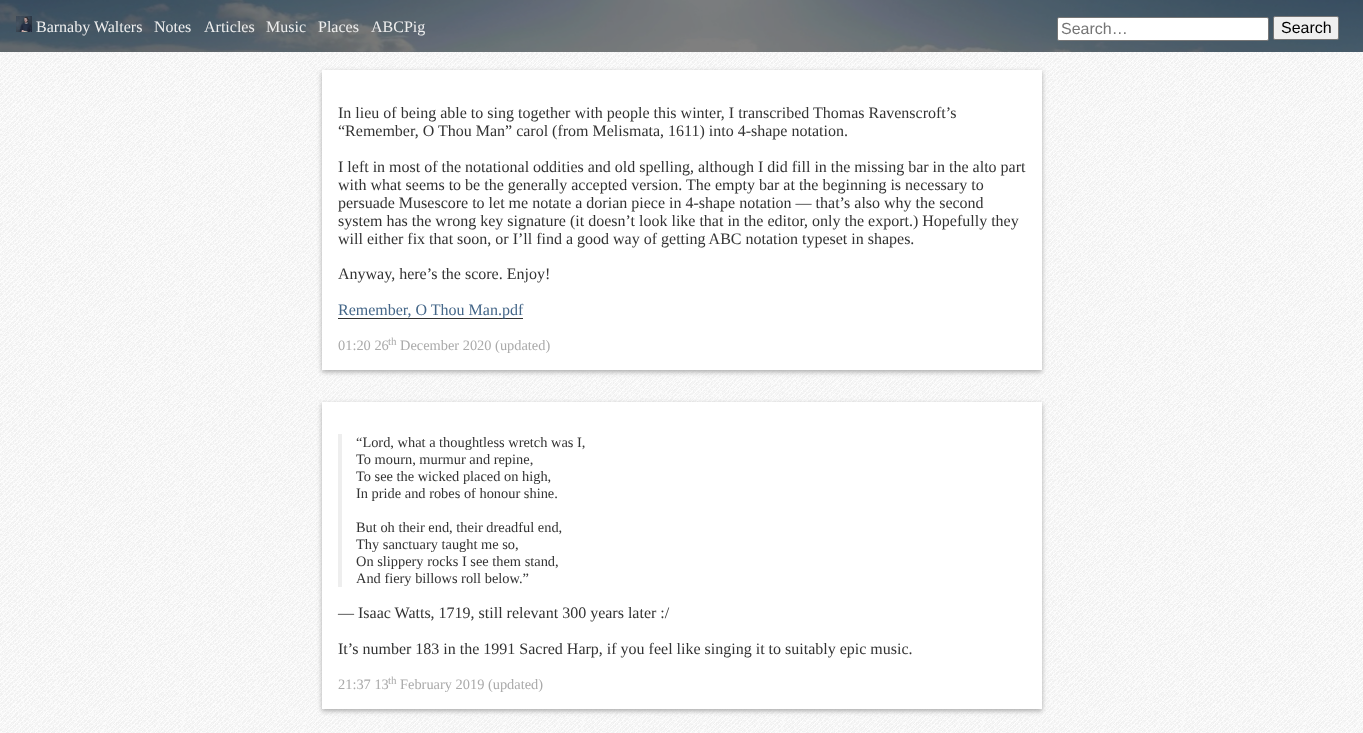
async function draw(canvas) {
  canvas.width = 1363;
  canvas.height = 733;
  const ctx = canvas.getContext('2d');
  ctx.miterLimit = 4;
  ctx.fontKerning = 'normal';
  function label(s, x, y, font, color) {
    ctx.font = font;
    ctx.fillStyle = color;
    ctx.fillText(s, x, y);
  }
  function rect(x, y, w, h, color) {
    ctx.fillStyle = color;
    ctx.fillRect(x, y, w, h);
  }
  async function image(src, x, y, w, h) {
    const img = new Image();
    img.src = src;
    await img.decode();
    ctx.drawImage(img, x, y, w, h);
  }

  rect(0, 0, 1363, 733, '#fff');
  await image('assets/img1.png', 0, 52, 1363, 681);
  await image('assets/img2.png', 0, 0, 1363, 52);
  await image('assets/img3.png', 16, 16, 16, 16);
  label('Barnaby Walters', 36, 32, '16px Liberation Serif', '#eee');
  label('Notes', 154, 32, '16px Liberation Serif', '#eee');
  label('Articles', 204, 32, '16px Liberation Serif', '#eee');
  label('Music', 266, 32, '16px Liberation Serif', '#eee');
  label('Places', 318, 32, '16px Liberation Serif', '#eee');
  label('ABCPig', 371, 32, '16px Liberation Serif', '#eee');
  ctx.fillStyle = '#fff';
  ctx.beginPath();
  ctx.roundRect(1057.5, 17.5, 211, 23, 1.5);
  ctx.fill();
  ctx.strokeStyle = '#767676';
  ctx.stroke();
  label('Search…', 1061, 34, '16px Liberation Sans', '#757575');
  ctx.fillStyle = '#efefef';
  ctx.beginPath();
  ctx.roundRect(1273.5, 16.5, 65, 23, 1.5);
  ctx.fill();
  ctx.stroke();
  label('Search', 1281, 33, '16px Liberation Sans', '#000');
  ctx.fillStyle = '#aaa';
  ctx.filter = 'blur(2.5px)';
  ctx.beginPath();
  ctx.rect(322, 72, 720, 300);
  ctx.fill();
  ctx.filter = 'none';
  rect(322, 70, 720, 300, '#fff');
  label('In lieu of being able to sing together with people this winter, I transcribed Thomas Ravenscroft’s', 338, 118, '16px Liberation Serif', '#333');
  label('“Remember, O Thou Man” carol (from Melismata, 1611) into 4-shape notation.', 338, 136, '16px Liberation Serif', '#333');
  label('I left in most of the notational oddities and old spelling, although I did fill in the missing bar in the alto part', 338, 172, '16px Liberation Serif', '#333');
  label('with what seems to be the generally accepted version. The empty bar at the beginning is necessary to', 338, 190, '16px Liberation Serif', '#333');
  label('persuade Musescore to let me notate a dorian piece in 4-shape notation — that’s also why the second', 338, 208, '16px Liberation Serif', '#333');
  label('system has the wrong key signature (it doesn’t look like that in the editor, only the export.) Hopefully they', 338, 226, '16px Liberation Serif', '#333');
  label('will either fix that soon, or I’ll find a good way of getting ABC notation typeset in shapes.', 338, 244, '16px Liberation Serif', '#333');
  label('Anyway, here’s the score. Enjoy!', 338, 279, '16px Liberation Serif', '#333');
  rect(338, 318, 185, 1, '#333');
  label('Remember, O Thou Man.pdf', 338, 315, '16px Liberation Serif', '#468');
  label('01:20 26', 338, 350, '14.4px Liberation Serif', '#aaa');
  label('th', 388, 345, '11px Liberation Serif', '#aaa');
  label('December 2020 (updated)', 400, 350, '14.4px Liberation Serif', '#aaa');
  ctx.filter = 'blur(2.5px)';
  ctx.beginPath();
  ctx.rect(322, 404, 720, 307);
  ctx.fill();
  ctx.filter = 'none';
  rect(322, 402, 720, 307, '#fff');
  rect(338, 434, 4, 153, '#eee');
  label('“Lord, what a thoughtless wretch was I,', 356, 447, '14.4px Liberation Serif', '#333');
  label('To mourn, murmur and repine,', 356, 464, '14.4px Liberation Serif', '#333');
  label('To see the wicked placed on high,', 356, 481, '14.4px Liberation Serif', '#333');
  label('In pride and robes of honour shine.', 356, 498, '14.4px Liberation Serif', '#333');
  label('But oh their end, their dreadful end,', 356, 532, '14.4px Liberation Serif', '#333');
  label('Thy sanctuary taught me so,', 356, 549, '14.4px Liberation Serif', '#333');
  label('On slippery rocks I see them stand,', 356, 566, '14.4px Liberation Serif', '#333');
  label('And fiery billows roll below.”', 356, 583, '14.4px Liberation Serif', '#333');
  label('— Isaac Watts, 1719, still relevant 300 years later :/', 338, 618, '16px Liberation Serif', '#333');
  label('It’s number 183 in the 1991 Sacred Harp, if you feel like singing it to suitably epic music.', 338, 654, '16px Liberation Serif', '#333');
  label('21:37 13', 338, 689, '14.4px Liberation Serif', '#aaa');
  label('th', 388, 684, '11px Liberation Serif', '#aaa');
  label('February 2019 (updated)', 400, 689, '14.4px Liberation Serif', '#aaa');
}

draw(document.querySelector('canvas'));
